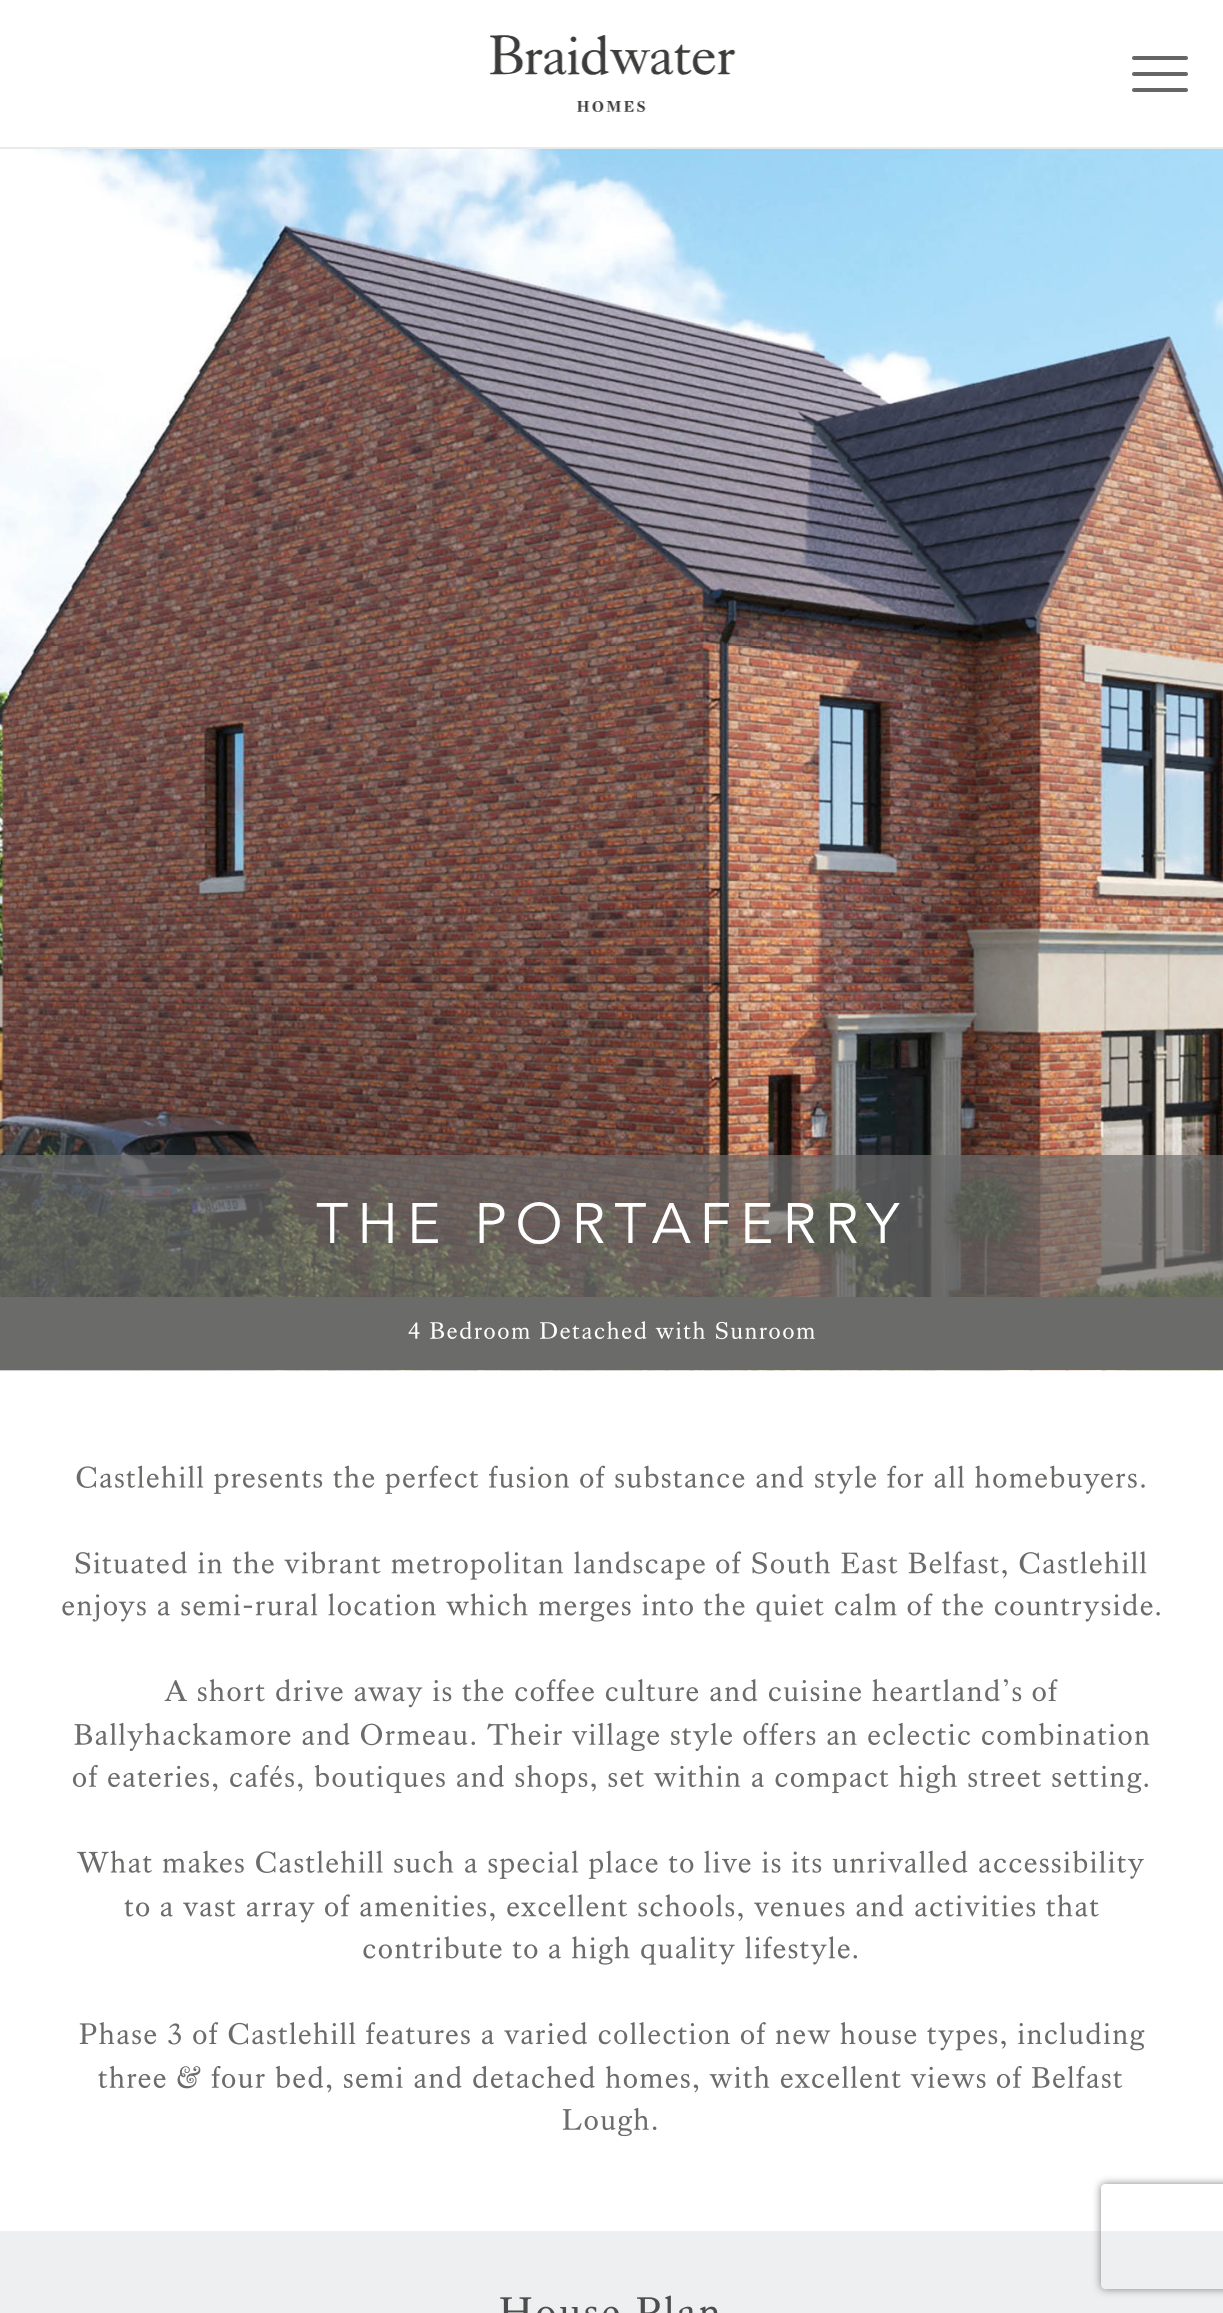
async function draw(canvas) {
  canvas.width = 1223;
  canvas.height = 2313;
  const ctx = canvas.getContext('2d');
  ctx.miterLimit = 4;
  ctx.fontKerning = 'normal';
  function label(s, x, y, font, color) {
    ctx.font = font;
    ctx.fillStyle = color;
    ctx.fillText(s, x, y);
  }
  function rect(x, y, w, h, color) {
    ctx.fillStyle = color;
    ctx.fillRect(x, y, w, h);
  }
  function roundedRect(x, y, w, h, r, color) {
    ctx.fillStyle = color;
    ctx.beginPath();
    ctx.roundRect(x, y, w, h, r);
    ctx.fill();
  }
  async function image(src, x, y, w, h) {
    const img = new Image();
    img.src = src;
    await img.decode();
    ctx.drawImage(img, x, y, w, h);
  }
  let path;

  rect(0, 0, 1223, 2313, '#fff');
  rect(0, 147, 1223, 2, '#e9eaea');
  await image('assets/img1.png', 490, 35, 246, 77);
  roundedRect(1132, 72, 56, 4, 2, '#666');
  roundedRect(1132, 56, 56, 4, 2, '#666');
  roundedRect(1132, 88, 56, 4, 2, '#666');
  await image('assets/img2.png', 0, 149, 1223, 1222);
  rect(0, 1155, 1223, 142, '#6b6b6bb3');
  ctx.letterSpacing = '9px';
  label('THE PORTAFERRY', 316, 1243, '56.4px Avenir', '#fff');
  rect(0, 1297, 1223, 73, '#6b6b6a');
  await image('assets/img3.png', 408, 1321, 407, 19);
  await image('assets/img4.png', 76, 1465, 1069, 29);
  await image('assets/img5.png', 75, 1551, 1072, 29);
  await image('assets/img6.png', 62, 1593, 1098, 29);
  await image('assets/img7.png', 164, 1679, 894, 29);
  await image('assets/img8.png', 74, 1722, 1076, 30);
  await image('assets/img9.png', 72, 1764, 1076, 30);
  await image('assets/img10.png', 77, 1850, 1067, 29);
  await image('assets/img11.png', 124, 1894, 975, 29);
  await image('assets/img12.png', 363, 1936, 494, 29);
  await image('assets/img13.png', 79, 2022, 1066, 29);
  await image('assets/img14.png', 98, 2065, 1025, 28);
  await image('assets/img15.png', 562, 2107, 95, 30);
  rect(0, 2231, 1223, 82, '#eeeff1');
  await image('assets/img16.png', 500, 2295, 218, 18);
  ctx.save();
  path = new Path2D('M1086 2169H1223V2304H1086ZM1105 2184H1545C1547 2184 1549 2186 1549 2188V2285C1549 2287 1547 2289 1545 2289H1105C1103 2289 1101 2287 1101 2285V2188C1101 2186 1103 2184 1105 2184Z');
  ctx.clip(path, 'evenodd');
  ctx.fillStyle = '#808080';
  ctx.filter = 'blur(4.5px)';
  ctx.beginPath();
  ctx.roundRect(1101, 2184, 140, 105, 4);
  ctx.fill();
  ctx.filter = 'none';
  ctx.restore();
}

draw(document.querySelector('canvas'));
